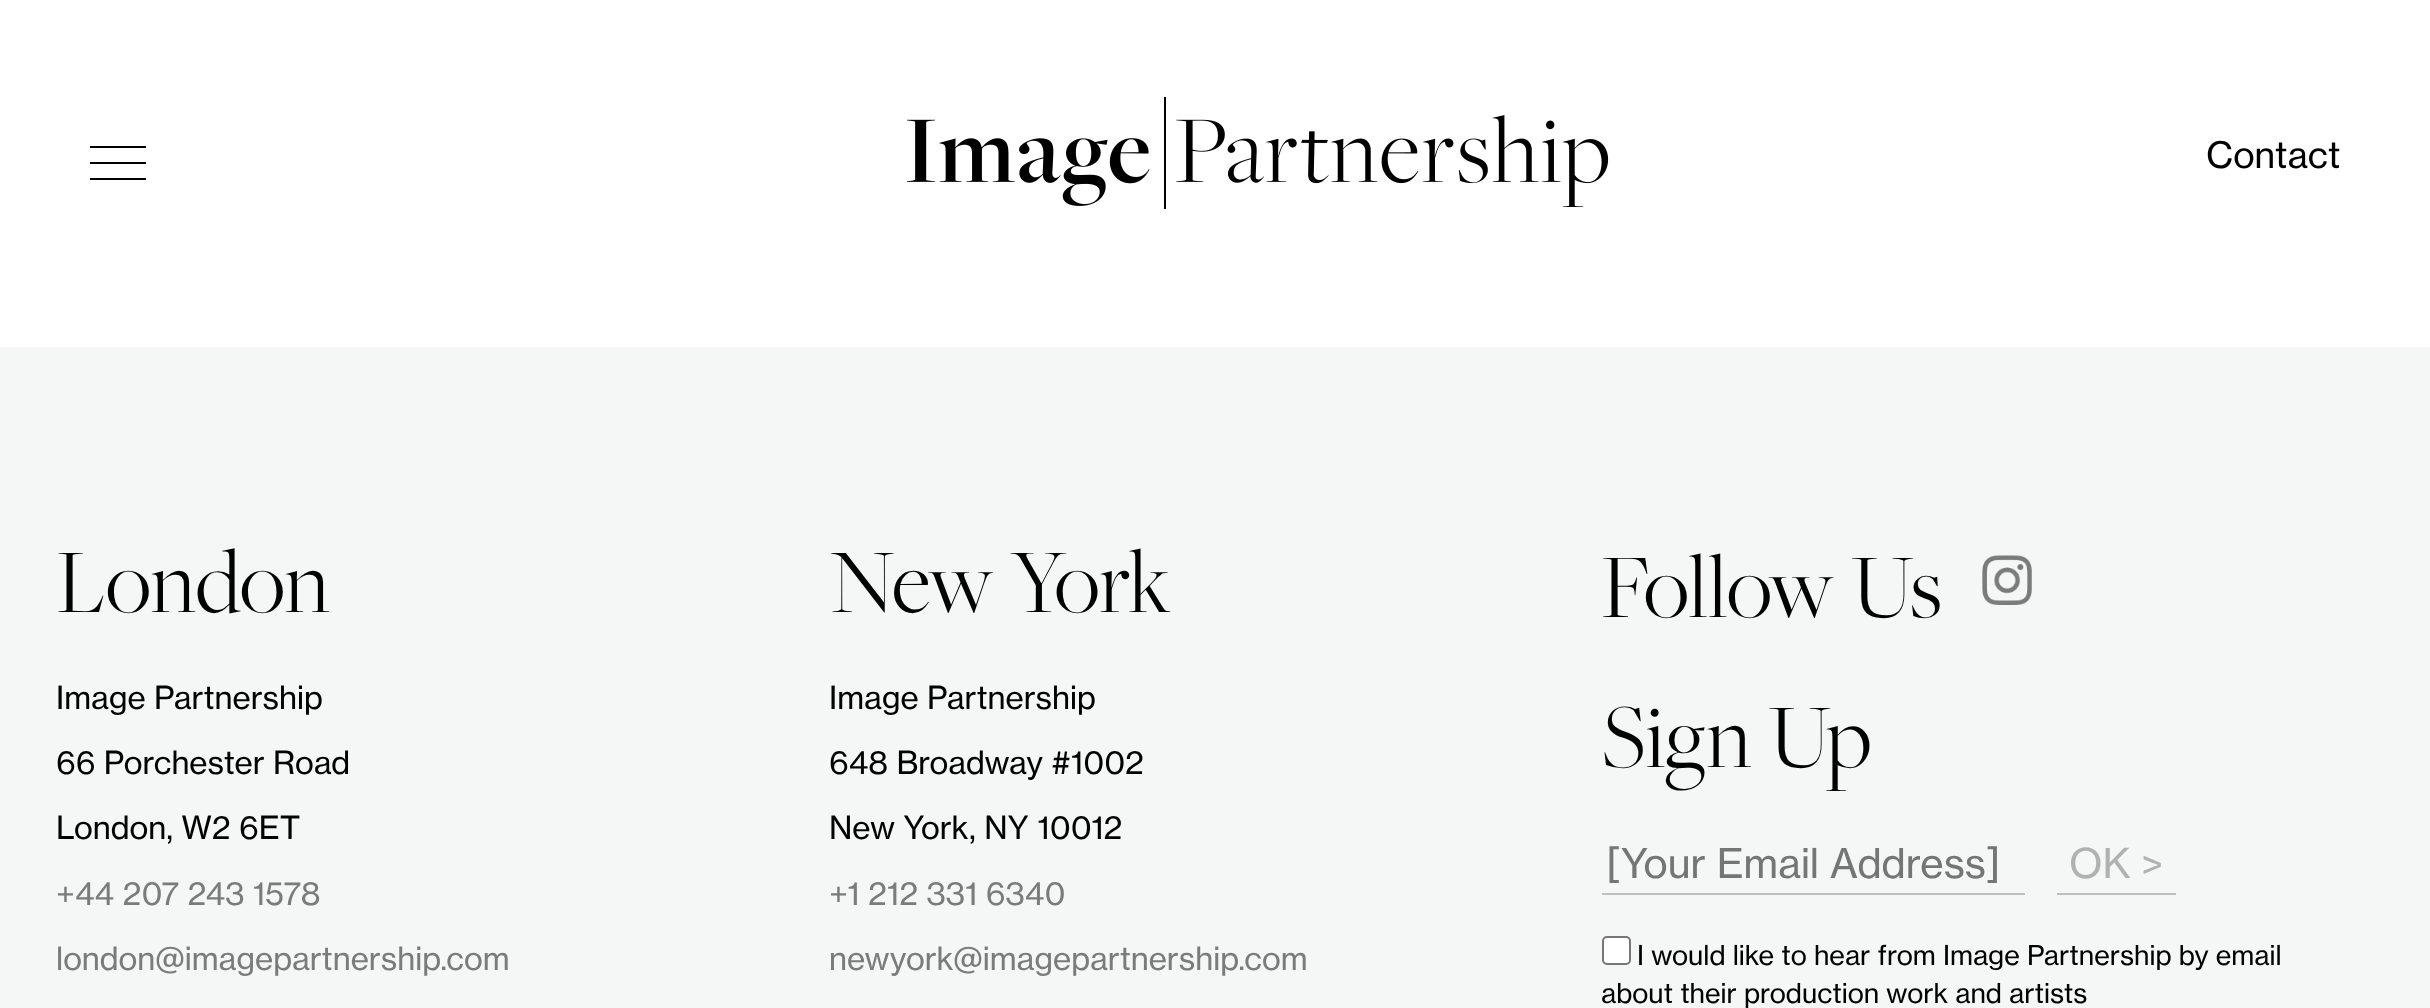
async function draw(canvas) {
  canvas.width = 2430;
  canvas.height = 1008;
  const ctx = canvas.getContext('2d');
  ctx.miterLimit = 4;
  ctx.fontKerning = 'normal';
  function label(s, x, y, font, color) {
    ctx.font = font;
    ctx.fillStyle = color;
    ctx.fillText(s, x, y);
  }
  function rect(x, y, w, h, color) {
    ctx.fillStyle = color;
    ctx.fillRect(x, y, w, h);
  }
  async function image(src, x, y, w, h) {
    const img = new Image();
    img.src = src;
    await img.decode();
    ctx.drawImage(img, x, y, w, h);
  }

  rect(0, 0, 2430, 1008, '#fff');
  rect(90, 146, 56, 2, '#000');
  rect(90, 162, 56, 2, '#000');
  rect(90, 178, 56, 2, '#000');
  await image('assets/img1.png', 907, 97, 702, 112);
  label('Contact', 2206, 168, '36px "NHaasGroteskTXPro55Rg"', '#000');
  rect(0, 347, 2430, 661, '#f5f6f6');
  label('London', 56, 612, '300 94.5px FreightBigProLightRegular', '#000');
  label('Image Partnership', 56, 709, '31.5px "NHaasGroteskTXPro55Rg"', '#000');
  label('66 Porchester Road', 56, 774, '31.5px "NHaasGroteskTXPro55Rg"', '#000');
  label('London, W2 6ET', 56, 839, '31.5px "NHaasGroteskTXPro55Rg"', '#000');
  label('+44 207 243 1578', 56, 905, '31.5px "NHaasGroteskTXPro55Rg"', '#7b7b7b');
  label('london@imagepartnership.com', 56, 970, '31.5px "NHaasGroteskTXPro55Rg"', '#7b7b7b');
  label('New York', 829, 612, '300 94.5px FreightBigProLightRegular', '#000');
  label('Image Partnership', 829, 709, '31.5px "NHaasGroteskTXPro55Rg"', '#000');
  label('648 Broadway #1002', 829, 774, '31.5px "NHaasGroteskTXPro55Rg"', '#000');
  label('New York, NY 10012', 829, 839, '31.5px "NHaasGroteskTXPro55Rg"', '#000');
  label('+1 212 331 6340', 829, 905, '31.5px "NHaasGroteskTXPro55Rg"', '#7b7b7b');
  label('newyork@imagepartnership.com', 829, 970, '31.5px "NHaasGroteskTXPro55Rg"', '#7b7b7b');
  label('Follow Us', 1601, 617, '300 94.5px FreightBigProLightRegular', '#000');
  await image('assets/img2.png', 1982, 555, 50, 50);
  label('Sign Up', 1601, 767, '300 94.5px FreightBigProLightRegular', '#000');
  rect(1602, 893, 423, 2, '#bfbfbf');
  label('[Your Email Address]', 1606, 878, '40.5px "NHaasGroteskTXPro55Rg"', '#757575');
  rect(2057, 893, 119, 2, '#bfbfbf');
  label('OK >', 2069, 878, '40.5px "NHaasGroteskTXPro55Rg"', '#b0b1b1');
  ctx.fillStyle = '#fff';
  ctx.beginPath();
  ctx.roundRect(1603, 937, 27, 27, 4);
  ctx.fill();
  ctx.strokeStyle = '#767676';
  ctx.lineWidth = 2;
  ctx.stroke();
  label('I would like to hear from Image Partnership by email', 1637, 965, '27px "NHaasGroteskTXPro55Rg"', '#000');
  label('about their production work and artists', 1601, 1003, '27px "NHaasGroteskTXPro55Rg"', '#000');
}

draw(document.querySelector('canvas'));
